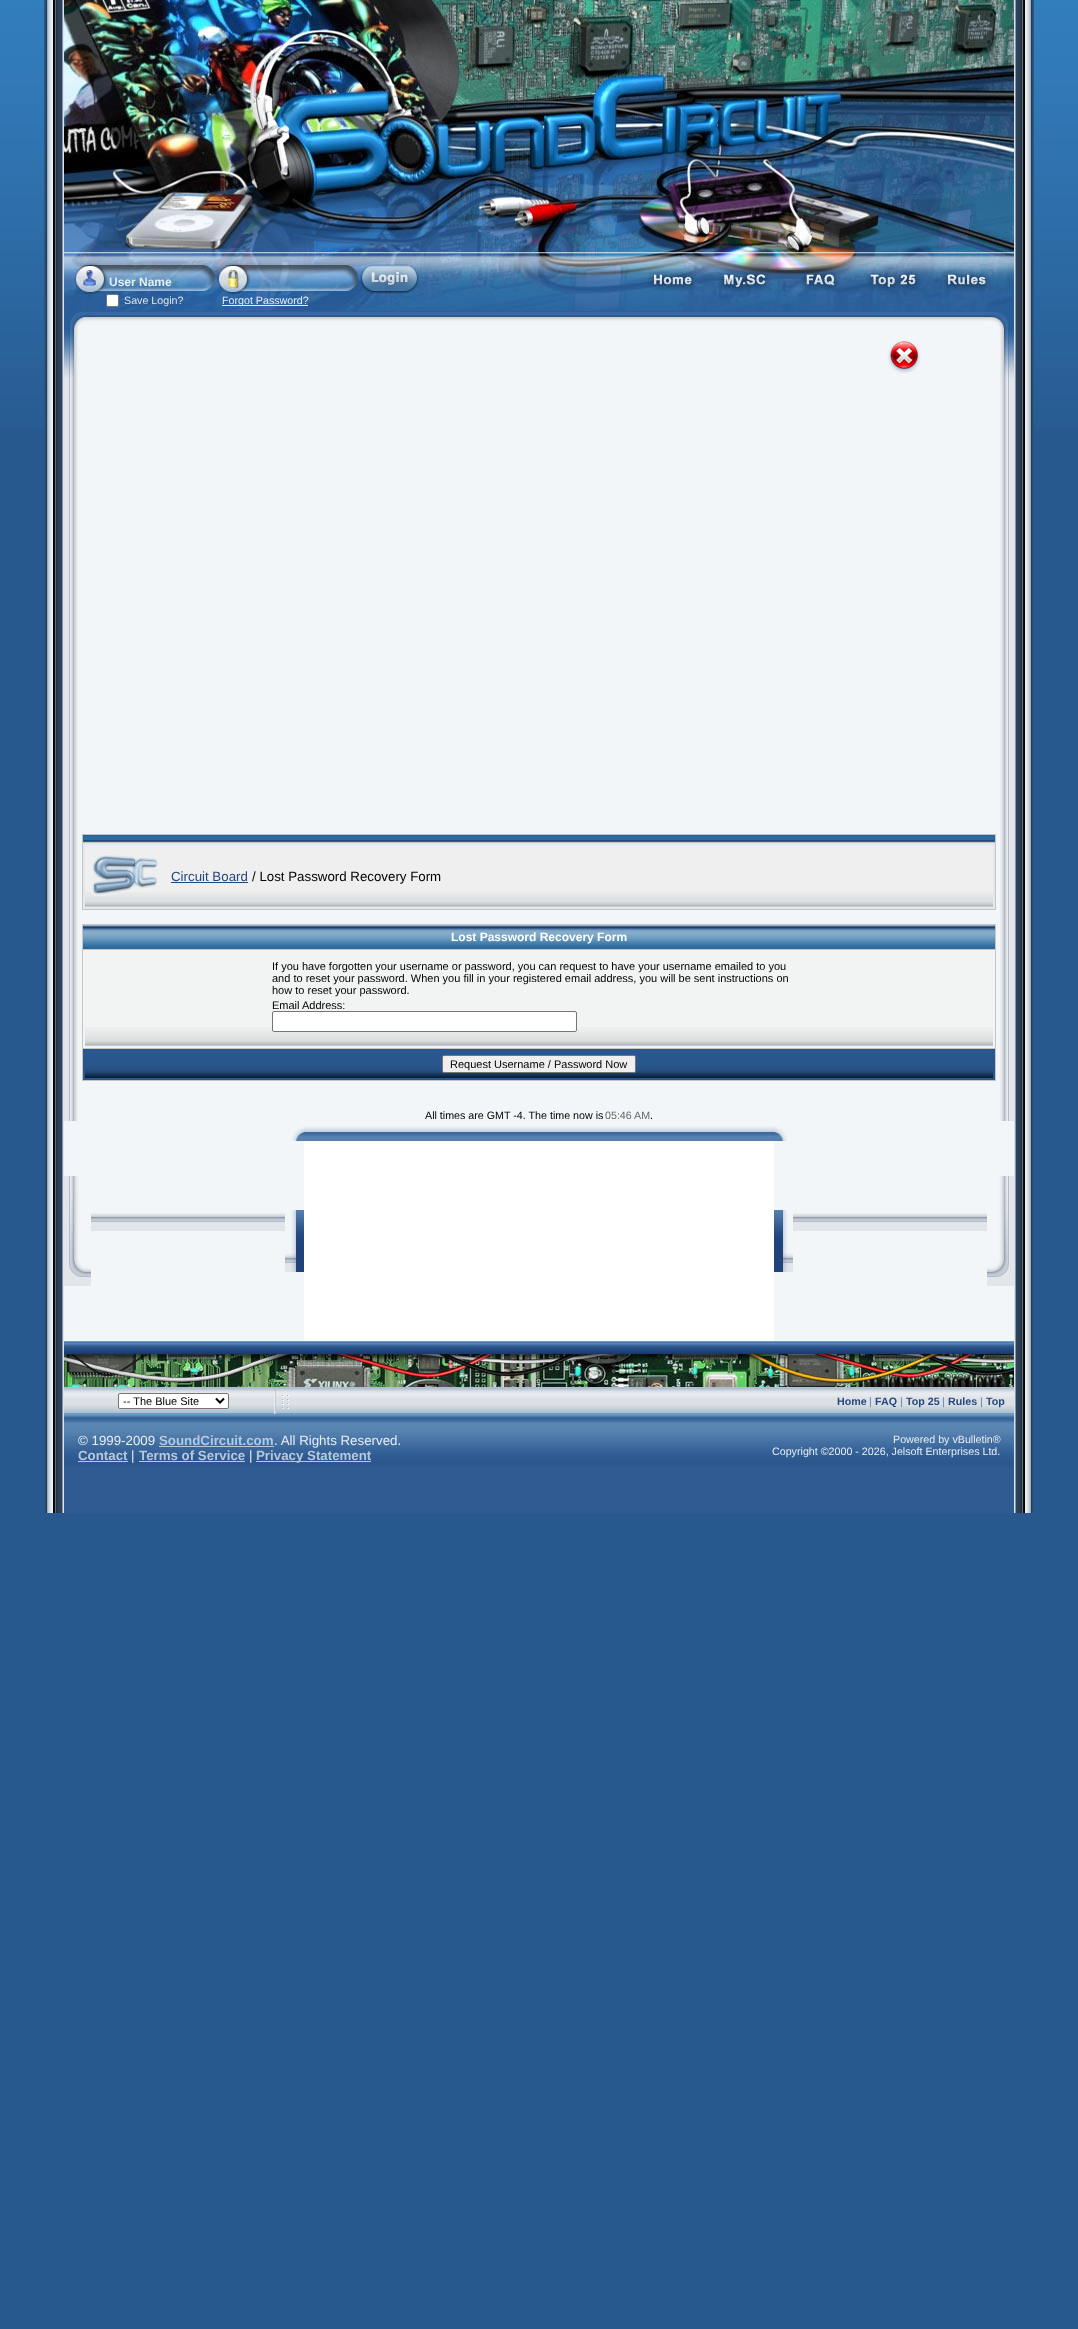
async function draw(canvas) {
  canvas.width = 1078;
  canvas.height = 2329;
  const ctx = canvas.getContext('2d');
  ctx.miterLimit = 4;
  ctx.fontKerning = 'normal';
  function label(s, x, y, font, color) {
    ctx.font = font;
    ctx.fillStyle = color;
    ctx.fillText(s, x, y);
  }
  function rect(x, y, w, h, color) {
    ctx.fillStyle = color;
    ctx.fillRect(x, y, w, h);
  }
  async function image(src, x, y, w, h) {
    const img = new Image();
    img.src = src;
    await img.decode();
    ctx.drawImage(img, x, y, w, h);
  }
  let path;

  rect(0, 0, 1078, 2329, '#27598e');
  await image('assets/img1.png', 0, 0, 1078, 429);
  await image('assets/img2.png', 44, 0, 20, 340);
  await image('assets/img3.png', 64, 0, 950, 252);
  await image('assets/img4.png', 64, 252, 367, 59);
  label('User Name', 109, 286, 'bold 12px Liberation Sans', '#e6edf3');
  await image('assets/img5.png', 360, 264, 59, 30);
  ctx.fillStyle = '#fff';
  ctx.beginPath();
  ctx.roundRect(106.5, 294.5, 12, 12, 1.5);
  ctx.fill();
  ctx.strokeStyle = '#767676';
  ctx.stroke();
  label('Save Login?', 124, 304, '10.7px Liberation Sans', '#e2e5e9');
  rect(222, 305, 86, 1, '#e6edf3');
  label('Forgot Password?', 222, 304, '10.7px Liberation Sans', '#e6edf3');
  await image('assets/img6.png', 431, 252, 204, 59);
  await image('assets/img7.png', 635, 252, 379, 13);
  await image('assets/img8.png', 635, 265, 74, 26);
  await image('assets/img9.png', 709, 265, 74, 26);
  await image('assets/img10.png', 783, 265, 74, 26);
  await image('assets/img11.png', 857, 265, 74, 26);
  await image('assets/img12.png', 931, 265, 74, 26);
  await image('assets/img13.png', 1005, 265, 9, 26);
  await image('assets/img14.png', 635, 291, 379, 20);
  await image('assets/img15.png', 64, 311, 29, 29);
  rect(93, 321, 892, 19, '#f3f6f9');
  await image('assets/img16.png', 93, 311, 892, 10);
  await image('assets/img17.png', 985, 311, 29, 29);
  await image('assets/img18.png', 1014, 0, 20, 340);
  await image('assets/img19.png', 44, 340, 20, 584);
  rect(78, 340, 922, 584, '#f3f6f9');
  await image('assets/img20.png', 64, 340, 14, 584);
  await image('assets/img21.png', 64, 340, 10, 38);
  await image('assets/img22.png', 1000, 340, 14, 584);
  await image('assets/img23.png', 1004, 340, 10, 38);
  await image('assets/img24.png', 1014, 340, 20, 584);
  await image('assets/img25.png', 887, 340, 34, 34);
  rect(82, 834, 914, 76, '#c5c5c5');
  rect(83, 836, 912, 4, '#2d6ba3');
  rect(83, 840, 912, 1, '#24477f');
  ctx.strokeStyle = '#295f99';
  ctx.strokeRect(83.5, 835.5, 911, 6);
  rect(85, 845, 908, 47, '#efefef');
  await image('assets/img26.png', 85, 892, 908, 15);
  ctx.strokeStyle = '#e4e8ea';
  ctx.lineWidth = 2;
  ctx.strokeRect(84, 844, 910, 64);
  await image('assets/img27.png', 91, 855, 68, 41);
  label('Circuit Board', 171, 881, '13.3px Liberation Sans', '#24477f');
  rect(171, 882, 77, 1, '#24477f');
  label('/ Lost Password Recovery Form', 252, 881, '13.3px Liberation Sans', '#000');
  await image('assets/img28.png', 44, 924, 20, 197);
  rect(78, 924, 4, 197, '#f3f6f9');
  await image('assets/img29.png', 64, 924, 14, 197);
  rect(82, 1081, 914, 40, '#f3f6f9');
  rect(82, 924, 914, 157, '#c5c5c5');
  await image('assets/img30.png', 83, 925, 912, 24);
  label('Lost Password Recovery Form', 451, 941, 'bold 12px Liberation Sans', '#fff');
  rect(85, 952, 908, 75, '#f2f3f3');
  await image('assets/img31.png', 85, 1027, 908, 19);
  ctx.strokeStyle = '#f2f3f3';
  ctx.strokeRect(84, 951, 910, 96);
  label('If you have forgotten your username or password, you can request to have your username emailed to you', 272, 970, '11px Liberation Sans', '#000');
  label('and to reset your password. When you fill in your registered email address, you will be sent instructions on', 272, 982, '11px Liberation Sans', '#000');
  label('how to reset your password.', 272, 994, '11px Liberation Sans', '#000');
  label('Email Address:', 272, 1009, '11px Liberation Sans', '#000');
  ctx.fillStyle = '#fff';
  ctx.beginPath();
  ctx.roundRect(272.5, 1011.5, 304, 20, 1.5);
  ctx.fill();
  ctx.strokeStyle = '#767676';
  ctx.lineWidth = 1;
  ctx.stroke();
  await image('assets/img32.png', 85, 1049, 908, 29);
  rect(993, 1049, 2, 31, '#29568d');
  rect(83, 1078, 912, 2, '#29568d');
  rect(83, 1049, 2, 31, '#29568d');
  ctx.fillStyle = '#efefef';
  ctx.beginPath();
  ctx.roundRect(442.5, 1055.5, 193, 17, 1.5);
  ctx.fill();
  ctx.stroke();
  label('Request Username / Password Now', 450, 1068, '11px Liberation Sans', '#000');
  label('All times are GMT -4. The time now is', 425, 1119, '10.7px Liberation Sans', '#000');
  label('05:46 AM', 605, 1119, '10.7px Liberation Sans', '#656565');
  label('.', 650, 1119, '10.7px Liberation Sans', '#000');
  rect(996, 924, 4, 197, '#f3f6f9');
  await image('assets/img33.png', 1000, 924, 14, 197);
  await image('assets/img34.png', 1014, 924, 20, 197);
  await image('assets/img35.png', 44, 1121, 20, 220);
  rect(64, 1121, 950, 220, '#f3f6f9');
  await image('assets/img36.png', 64, 1176, 27, 110);
  await image('assets/img37.png', 1014, 1121, 20, 220);
  await image('assets/img38.png', 91, 1213, 896, 18);
  await image('assets/img39.png', 291, 1127, 13, 14);
  await image('assets/img40.png', 304, 1126, 470, 15);
  await image('assets/img41.png', 774, 1126, 14, 15);
  await image('assets/img42.png', 285, 1210, 19, 62);
  rect(304, 1141, 470, 200, '#fff');
  await image('assets/img43.png', 774, 1210, 19, 62);
  await image('assets/img44.png', 987, 1176, 27, 110);
  await image('assets/img45.png', 44, 1341, 20, 73);
  await image('assets/img46.png', 64, 1341, 950, 13);
  await image('assets/img47.png', 64, 1354, 950, 33);
  await image('assets/img48.png', 64, 1387, 950, 27);
  ctx.beginPath();
  ctx.roundRect(118.5, 1393.5, 110, 15, 1.5);
  ctx.fill();
  ctx.stroke();
  path = new Path2D('M216 1398.5L220 1402.5L224 1398.5');
  ctx.strokeStyle = '#000';
  ctx.lineWidth = 2;
  ctx.stroke(path);
  label('-- The Blue Site', 123, 1405, '11px Liberation Sans', '#000');
  await image('assets/img49.png', 274, 1388, 15, 26);
  label('Home', 837, 1405, 'bold 10.7px Liberation Sans', '#24477f');
  label('|', 869, 1405, '10.7px Liberation Sans', '#5b86b4');
  label('FAQ', 875, 1405, 'bold 10.7px Liberation Sans', '#24477f');
  label('|', 900, 1405, '10.7px Liberation Sans', '#5b86b4');
  label('Top 25', 906, 1405, 'bold 10.7px Liberation Sans', '#24477f');
  label('|', 942, 1405, '10.7px Liberation Sans', '#5b86b4');
  label('Rules', 948, 1405, 'bold 10.7px Liberation Sans', '#24477f');
  label('|', 980, 1405, '10.7px Liberation Sans', '#5b86b4');
  label('Top', 986, 1405, 'bold 10.7px Liberation Sans', '#24477f');
  await image('assets/img50.png', 1014, 1341, 20, 73);
  await image('assets/img51.png', 44, 1414, 20, 99);
  rect(64, 1467, 950, 46, '#2f5b92');
  await image('assets/img52.png', 64, 1414, 477, 53);
  label('© 1999-2009', 78, 1445, '13.3px Liberation Sans', '#e6edf3');
  label('SoundCircuit.com', 159, 1445, 'bold 13.3px Liberation Sans', '#b8c7db');
  rect(159, 1446, 115, 1, '#b8c7db');
  label('. All Rights Reserved.', 274, 1445, '13.3px Liberation Sans', '#e6edf3');
  label('Contact', 78, 1460, 'bold 13.3px Liberation Sans', '#b8c7db');
  rect(78, 1461, 50, 1, '#b8c7db');
  label('|', 131, 1460, '13.3px Liberation Sans', '#e6edf3');
  label('Terms of Service', 139, 1460, 'bold 13.3px Liberation Sans', '#b8c7db');
  rect(139, 1461, 106, 1, '#b8c7db');
  label('|', 249, 1460, '13.3px Liberation Sans', '#e6edf3');
  rect(256, 1461, 115, 1, '#b8c7db');
  label('Privacy Statement', 256, 1460, 'bold 13.3px Liberation Sans', '#b8c7db');
  await image('assets/img53.png', 541, 1414, 473, 53);
  label('Powered by vBulletin®', 893, 1443, '10.7px Liberation Sans', '#e6edf3');
  label('Copyright ©2000 - 2026, Jelsoft Enterprises Ltd.', 772, 1455, '10.7px Liberation Sans', '#e6edf3');
  await image('assets/img54.png', 1014, 1414, 20, 99);
}

draw(document.querySelector('canvas'));
